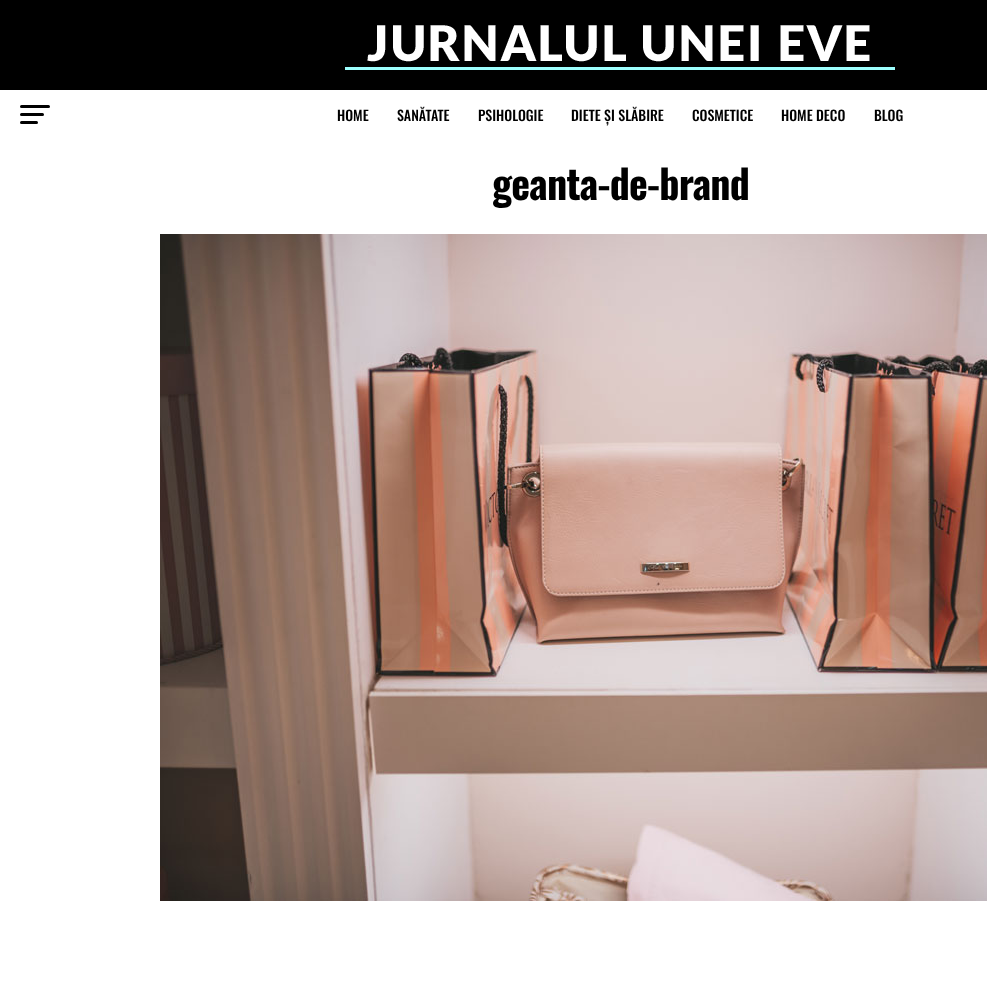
async function draw(canvas) {
  canvas.width = 987;
  canvas.height = 1002;
  const ctx = canvas.getContext('2d');
  ctx.miterLimit = 4;
  ctx.fontKerning = 'normal';
  function label(s, x, y, font, color) {
    ctx.font = font;
    ctx.fillStyle = color;
    ctx.fillText(s, x, y);
  }
  function rect(x, y, w, h, color) {
    ctx.fillStyle = color;
    ctx.fillRect(x, y, w, h);
  }
  function roundedRect(x, y, w, h, r, color) {
    ctx.fillStyle = color;
    ctx.beginPath();
    ctx.roundRect(x, y, w, h, r);
    ctx.fill();
  }
  async function image(src, x, y, w, h) {
    const img = new Image();
    img.src = src;
    await img.decode();
    ctx.drawImage(img, x, y, w, h);
  }

  rect(0, 0, 987, 1002, '#fff');
  rect(0, 0, 987, 90, '#000');
  await image('assets/img1.png', 345, 25, 550, 45);
  roundedRect(20, 105, 30, 3, 1.5, '#000');
  roundedRect(20, 113, 24, 3, 1.5, '#000');
  roundedRect(20, 121, 18, 3, 1.5, '#000');
  label('HOME', 337, 121, '500 14px Oswald', '#000');
  label('SANĂTATE', 397, 121, '500 14px Oswald', '#000');
  label('PSIHOLOGIE', 478, 121, '500 14px Oswald', '#000');
  label('DIETE ȘI SLĂBIRE', 571, 121, '500 14px Oswald', '#000');
  label('COSMETICE', 692, 121, '500 14px Oswald', '#000');
  label('HOME DECO', 781, 121, '500 14px Oswald', '#000');
  label('BLOG', 874, 121, '500 14px Oswald', '#000');
  ctx.letterSpacing = '-0.75px';
  label('geanta-de-brand', 492, 200, 'bold 40px Oswald', '#000');
  await image('assets/img2.png', 160, 234, 827, 667);
}

draw(document.querySelector('canvas'));
